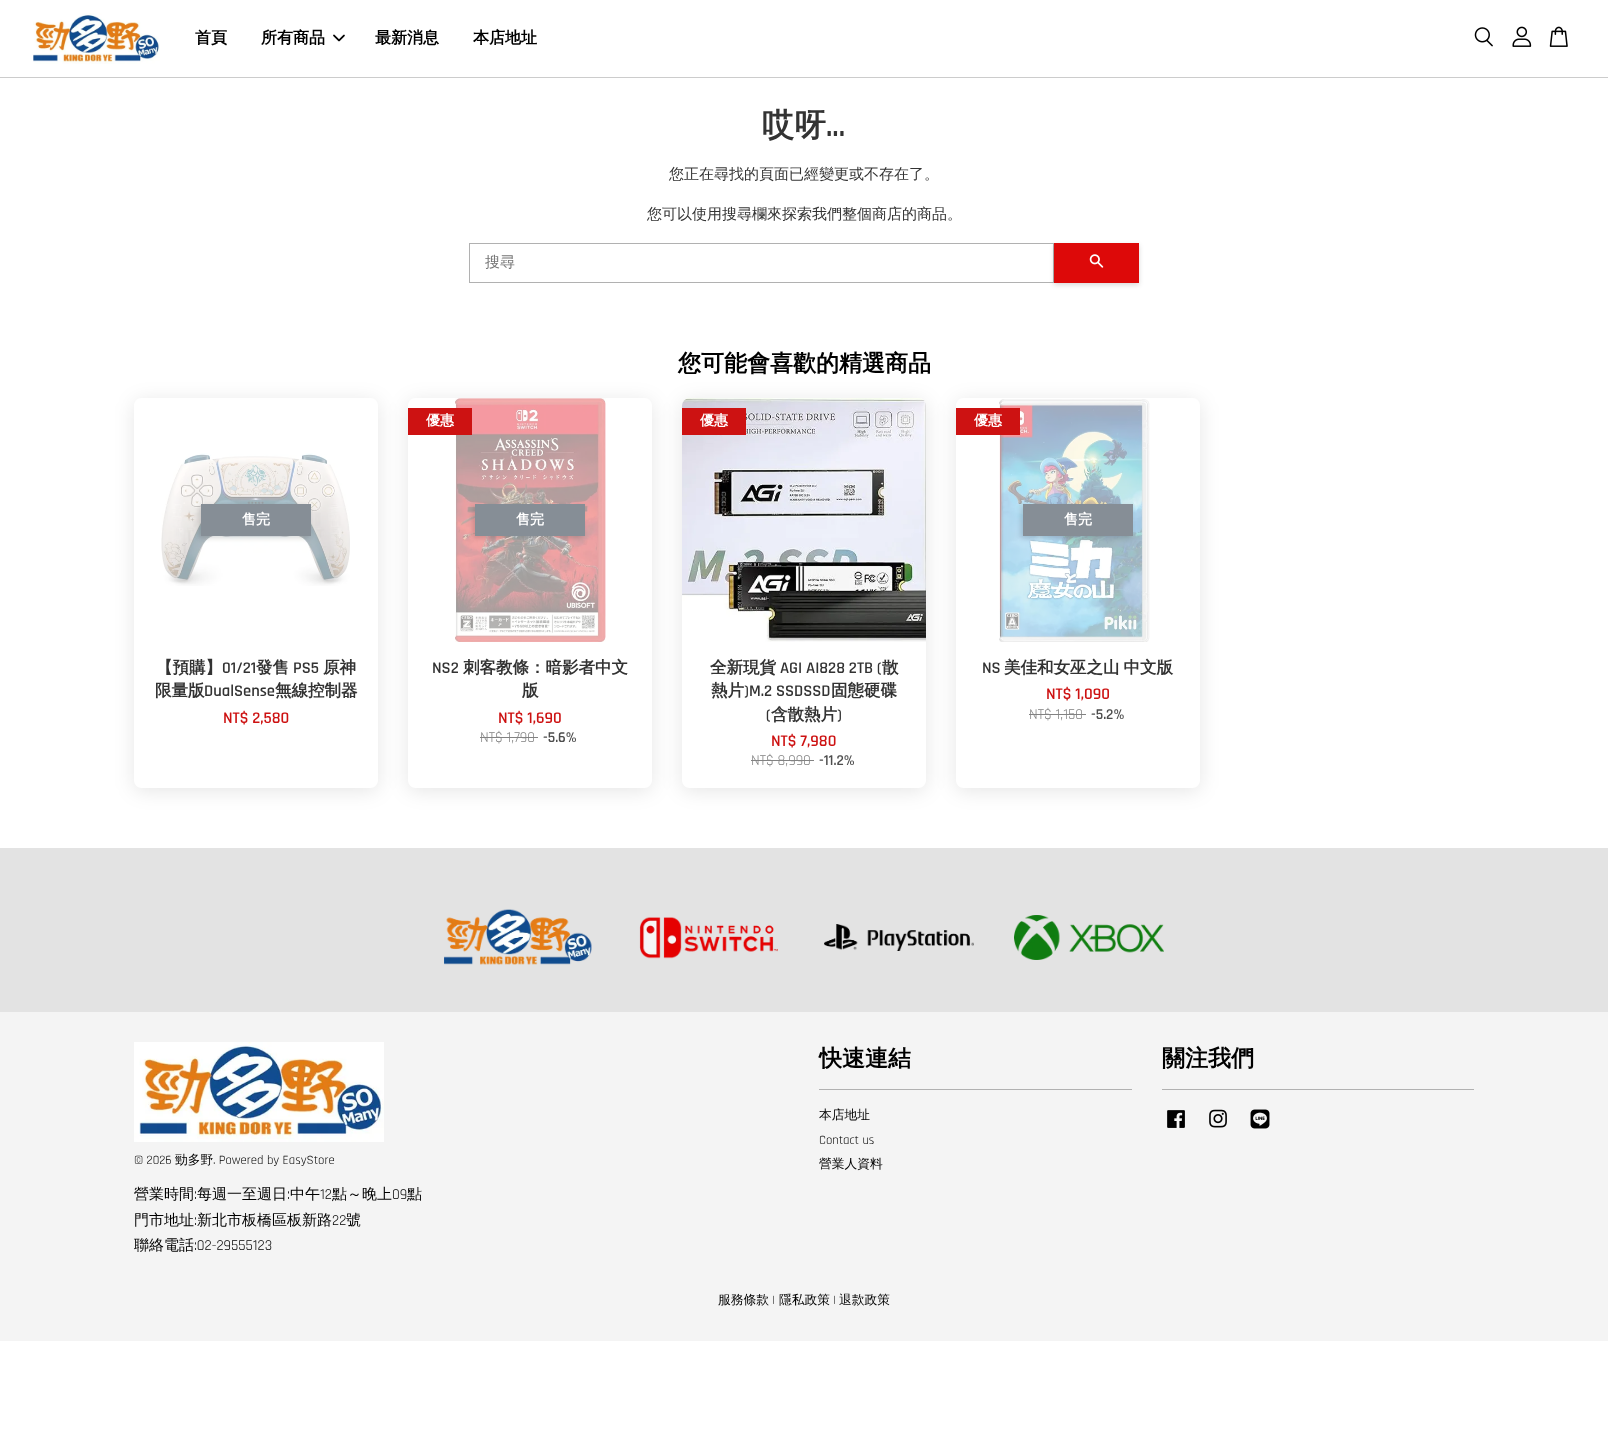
async function draw(canvas) {
  canvas.width = 1608;
  canvas.height = 1434;
  const ctx = canvas.getContext('2d');
  ctx.miterLimit = 4;
  ctx.fontKerning = 'normal';
  function label(s, x, y, font, color) {
    ctx.font = font;
    ctx.fillStyle = color;
    ctx.fillText(s, x, y);
  }
  function rect(x, y, w, h, color) {
    ctx.fillStyle = color;
    ctx.fillRect(x, y, w, h);
  }
  async function image(src, x, y, w, h) {
    const img = new Image();
    img.src = src;
    await img.decode();
    ctx.drawImage(img, x, y, w, h);
  }
  let path;

  rect(0, 0, 1608, 1434, '#fff');
  rect(0, 77, 1608, 1, '#ccc');
  await image('assets/img1.png', 33, 13, 127, 51);
  label('首頁', 195, 43, 'bold 16px WenQuanYi Zen Hei', '#000');
  label('所有商品', 261, 43, 'bold 16px WenQuanYi Zen Hei', '#000');
  await image('assets/img2.png', 333, 34, 12, 8);
  label('最新消息', 375, 43, 'bold 16px WenQuanYi Zen Hei', '#000');
  label('本店地址', 473, 43, 'bold 16px WenQuanYi Zen Hei', '#000');
  await image('assets/img3.png', 1474, 27, 19, 20);
  await image('assets/img4.png', 1512, 26, 20, 21);
  await image('assets/img5.png', 1549, 26, 19, 21);
  label('哎呀', 762, 136, 'bold 32px WenQuanYi Zen Hei', '#333');
  label('...', 826, 136, '600 32px Rajdhani', '#333');
  label('您正在尋找的頁面已經變更或不存在了。', 669, 179, '500 15px WenQuanYi Zen Hei', '#333');
  label('您可以使用搜尋欄來探索我們整個商店的商品。', 647, 219, '500 15px WenQuanYi Zen Hei', '#333');
  ctx.strokeStyle = '#b1b1b1';
  ctx.strokeRect(469.5, 243.5, 584, 39);
  label('搜尋', 485, 267, '500 15px WenQuanYi Zen Hei', '#757575');
  ctx.fillStyle = '#00000026';
  ctx.filter = 'blur(2.5px)';
  ctx.beginPath();
  ctx.rect(1054, 245, 85, 40);
  ctx.fill();
  ctx.filter = 'none';
  rect(1054, 243, 85, 40, '#dd0909');
  await image('assets/img6.png', 1089, 254, 15, 14);
  label('您可能會喜歡的精選商品', 678, 371, 'bold 23px WenQuanYi Zen Hei', '#000');
  ctx.save();
  path = new Path2D('M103 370H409V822H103ZM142 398H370C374.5 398 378 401.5 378 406V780C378 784.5 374.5 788 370 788H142C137.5 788 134 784.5 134 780V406C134 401.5 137.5 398 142 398Z');
  ctx.clip(path, 'evenodd');
  ctx.fillStyle = '#0000001a';
  ctx.filter = 'blur(10px)';
  ctx.beginPath();
  ctx.roundRect(134, 401, 244, 390, 8);
  ctx.fill();
  ctx.filter = 'none';
  ctx.restore();
  await image('assets/img7.png', 161, 453, 189, 133);
  ctx.fillStyle = '#00000026';
  ctx.filter = 'blur(2.5px)';
  ctx.beginPath();
  ctx.rect(199, 506, 110, 32);
  ctx.fill();
  ctx.filter = 'none';
  rect(201, 504, 110, 32, '#868e96');
  label('售完', 242, 524, 'bold 14px WenQuanYi Zen Hei', '#fff');
  label('【預購】', 156, 673, 'bold 16.5px WenQuanYi Zen Hei', '#333');
  label('01/21', 222, 673, '600 16.5px Rajdhani', '#333');
  label('發售', 256, 673, 'bold 16.5px WenQuanYi Zen Hei', '#333');
  label('PS5', 293, 673, '600 16.5px Rajdhani', '#333');
  label('原神', 323, 673, 'bold 16.5px WenQuanYi Zen Hei', '#333');
  label('限量版', 155, 696, 'bold 16.5px WenQuanYi Zen Hei', '#333');
  label('DualSense', 204, 696, '600 16.5px Rajdhani', '#333');
  label('無線控制器', 275, 696, 'bold 16.5px WenQuanYi Zen Hei', '#333');
  label('NT$ 2,580', 223, 723, '600 16.5px Rajdhani', '#cd1212');
  ctx.save();
  path = new Path2D('M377 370H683V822H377ZM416 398H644C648.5 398 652 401.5 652 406V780C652 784.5 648.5 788 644 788H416C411.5 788 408 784.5 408 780V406C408 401.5 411.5 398 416 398Z');
  ctx.clip(path, 'evenodd');
  ctx.fillStyle = '#0000001a';
  ctx.filter = 'blur(10px)';
  ctx.beginPath();
  ctx.roundRect(408, 401, 244, 390, 8);
  ctx.fill();
  ctx.filter = 'none';
  ctx.restore();
  await image('assets/img8.png', 455, 398, 151, 244);
  rect(408, 408, 64, 27, '#cd1212');
  label('優惠', 426, 425, 'bold 14px WenQuanYi Zen Hei', '#fff');
  ctx.fillStyle = '#00000026';
  ctx.filter = 'blur(2.5px)';
  ctx.beginPath();
  ctx.rect(473, 506, 110, 32);
  ctx.fill();
  ctx.filter = 'none';
  rect(475, 504, 110, 32, '#868e96');
  label('售完', 516, 524, 'bold 14px WenQuanYi Zen Hei', '#fff');
  label('NS2', 432, 673, '600 16.5px Rajdhani', '#333');
  label('刺客教條：暗影者中文', 463, 673, 'bold 16.5px WenQuanYi Zen Hei', '#333');
  label('版', 522, 696, 'bold 16.5px WenQuanYi Zen Hei', '#333');
  label('NT$ 1,690', 498, 723, '600 16.5px Rajdhani', '#cd1212');
  label('NT$ 1,790', 480, 742, '15px Rajdhani', '#828282');
  rect(480, 737, 58, 1, '#828282');
  label('-5.6%', 543, 742, '600 15px Rajdhani', '#4d4d4d');
  ctx.save();
  path = new Path2D('M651 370H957V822H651ZM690 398H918C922.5 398 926 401.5 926 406V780C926 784.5 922.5 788 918 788H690C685.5 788 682 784.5 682 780V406C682 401.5 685.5 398 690 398Z');
  ctx.clip(path, 'evenodd');
  ctx.fillStyle = '#0000001a';
  ctx.filter = 'blur(10px)';
  ctx.beginPath();
  ctx.roundRect(682, 401, 244, 390, 8);
  ctx.fill();
  ctx.filter = 'none';
  ctx.restore();
  await image('assets/img9.png', 682, 398, 244, 244);
  rect(682, 408, 64, 27, '#cd1212');
  label('優惠', 700, 425, 'bold 14px WenQuanYi Zen Hei', '#fff');
  label('全新現貨', 710, 673, 'bold 16.5px WenQuanYi Zen Hei', '#333');
  label('AGI AI828 2TB (', 780, 673, '600 16.5px Rajdhani', '#333');
  label('散', 882, 673, 'bold 16.5px WenQuanYi Zen Hei', '#333');
  label('熱片', 711, 696, 'bold 16.5px WenQuanYi Zen Hei', '#333');
  label(')M.2 SSDSSD', 744, 696, '600 16.5px Rajdhani', '#333');
  label('固態硬碟', 831, 696, 'bold 16.5px WenQuanYi Zen Hei', '#333');
  label('(', 766, 720, '600 16.5px Rajdhani', '#333');
  label('含散熱片', 771, 720, 'bold 16.5px WenQuanYi Zen Hei', '#333');
  label(')', 837, 720, '600 16.5px Rajdhani', '#333');
  label('NT$ 7,980', 771, 746, '600 16.5px Rajdhani', '#cd1212');
  label('NT$ 8,990', 751, 765, '15px Rajdhani', '#828282');
  rect(751, 760, 63, 1, '#828282');
  label('-11.2%', 819, 765, '600 15px Rajdhani', '#4d4d4d');
  ctx.save();
  path = new Path2D('M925 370H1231V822H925ZM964 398H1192C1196.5 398 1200 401.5 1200 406V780C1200 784.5 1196.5 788 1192 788H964C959.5 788 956 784.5 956 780V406C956 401.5 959.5 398 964 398Z');
  ctx.clip(path, 'evenodd');
  ctx.fillStyle = '#0000001a';
  ctx.filter = 'blur(10px)';
  ctx.beginPath();
  ctx.roundRect(956, 401, 244, 390, 8);
  ctx.fill();
  ctx.filter = 'none';
  ctx.restore();
  await image('assets/img10.png', 999, 399, 151, 243);
  rect(956, 408, 64, 27, '#cd1212');
  label('優惠', 974, 425, 'bold 14px WenQuanYi Zen Hei', '#fff');
  ctx.fillStyle = '#00000026';
  ctx.filter = 'blur(2.5px)';
  ctx.beginPath();
  ctx.rect(1021, 506, 110, 32);
  ctx.fill();
  ctx.filter = 'none';
  rect(1023, 504, 110, 32, '#868e96');
  label('售完', 1064, 524, 'bold 14px WenQuanYi Zen Hei', '#fff');
  label('NS', 982, 673, '600 16.5px Rajdhani', '#333');
  ctx.wordSpacing = '-1px';
  label('美佳和女巫之山 中文版', 1004, 673, 'bold 16.5px WenQuanYi Zen Hei', '#333');
  ctx.wordSpacing = '0px';
  label('NT$ 1,090', 1046, 699, '600 16.5px Rajdhani', '#cd1212');
  label('NT$ 1,150', 1029, 719, '15px Rajdhani', '#828282');
  rect(1029, 714, 57, 1, '#828282');
  label('-5.2%', 1091, 719, '600 15px Rajdhani', '#4d4d4d');
  rect(0, 1012, 1608, 329, '#f4f4f4');
  rect(0, 848, 1608, 164, '#e3e3e3');
  await image('assets/img11.png', 444, 909, 148, 56);
  await image('assets/img12.png', 639, 917, 139, 42);
  await image('assets/img13.png', 824, 924, 150, 27);
  await image('assets/img14.png', 1014, 915, 150, 45);
  await image('assets/img15.png', 134, 1042, 250, 100);
  label('© 2026', 134, 1164, '12.75px Rajdhani', '#000');
  label('勁多野', 175, 1164, '500 12.75px WenQuanYi Zen Hei', '#000');
  label('. Powered by EasyStore', 213, 1164, '12.75px Rajdhani', '#000');
  rect(819, 1089, 313, 1, '#b1b1b1');
  label('快速連結', 819, 1066, 'bold 23px WenQuanYi Zen Hei', '#000');
  label('本店地址', 819, 1119, '500 12.75px WenQuanYi Zen Hei', '#000');
  label('Contact us', 819, 1144, '12.75px Rajdhani', '#000');
  label('營業人資料', 819, 1168, '500 12.75px WenQuanYi Zen Hei', '#000');
  rect(1162, 1089, 312, 1, '#b1b1b1');
  label('關注我們', 1162, 1066, 'bold 23px WenQuanYi Zen Hei', '#000');
  await image('assets/img16.png', 1167, 1110, 18, 18);
  await image('assets/img17.png', 1209, 1109, 18, 19);
  await image('assets/img18.png', 1250, 1109, 20, 20);
  label('營業時間', 134, 1199, '500 15px WenQuanYi Zen Hei', '#000');
  label(':', 194, 1199, '15px Rajdhani', '#000');
  label('每週一至週日', 197, 1199, '500 15px WenQuanYi Zen Hei', '#000');
  label(':', 287, 1199, '15px Rajdhani', '#000');
  label('中午', 290, 1199, '500 15px WenQuanYi Zen Hei', '#000');
  label('12', 320, 1199, '15px Rajdhani', '#000');
  label('點～晚上', 332, 1199, '500 15px WenQuanYi Zen Hei', '#000');
  label('09', 392, 1199, '15px Rajdhani', '#000');
  label('點', 407, 1199, '500 15px WenQuanYi Zen Hei', '#000');
  label('門市地址', 134, 1225, '500 15px WenQuanYi Zen Hei', '#000');
  label(':', 194, 1225, '15px Rajdhani', '#000');
  label('新北市板橋區板新路', 197, 1225, '500 15px WenQuanYi Zen Hei', '#000');
  label('22', 332, 1225, '15px Rajdhani', '#000');
  label('號', 346, 1225, '500 15px WenQuanYi Zen Hei', '#000');
  label('聯絡電話', 134, 1250, '500 15px WenQuanYi Zen Hei', '#000');
  label(':02-29555123', 194, 1250, '15px Rajdhani', '#000');
  label('服務條款', 718, 1304, '500 12.75px WenQuanYi Zen Hei', '#000');
  label('|', 772, 1304, '12.75px Rajdhani', '#000');
  label('隱私政策', 779, 1304, '500 12.75px WenQuanYi Zen Hei', '#000');
  label('|', 833, 1304, '12.75px Rajdhani', '#000');
  label('退款政策', 839, 1304, '500 12.75px WenQuanYi Zen Hei', '#000');
}

draw(document.querySelector('canvas'));
